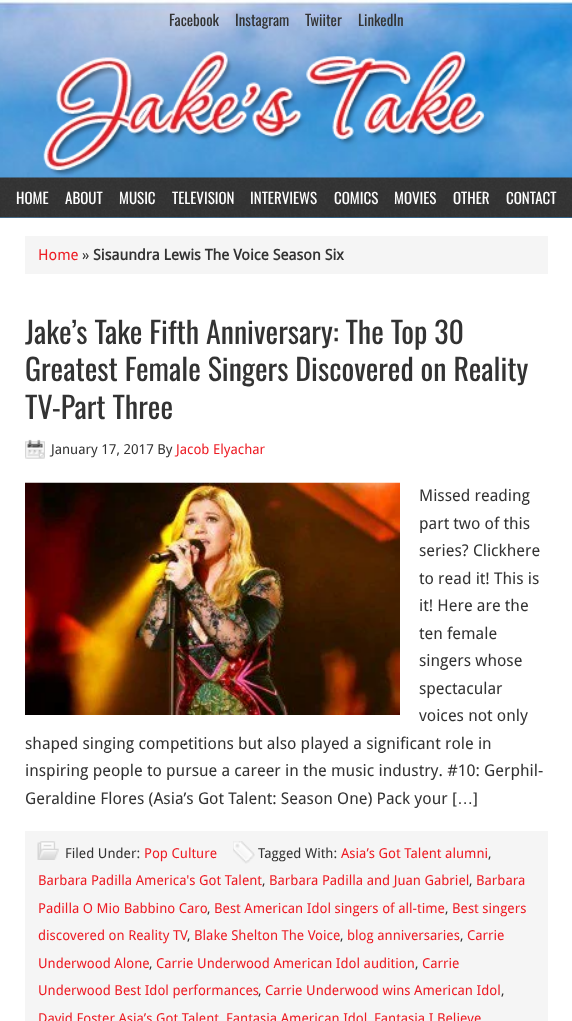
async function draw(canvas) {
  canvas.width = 572;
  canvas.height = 1021;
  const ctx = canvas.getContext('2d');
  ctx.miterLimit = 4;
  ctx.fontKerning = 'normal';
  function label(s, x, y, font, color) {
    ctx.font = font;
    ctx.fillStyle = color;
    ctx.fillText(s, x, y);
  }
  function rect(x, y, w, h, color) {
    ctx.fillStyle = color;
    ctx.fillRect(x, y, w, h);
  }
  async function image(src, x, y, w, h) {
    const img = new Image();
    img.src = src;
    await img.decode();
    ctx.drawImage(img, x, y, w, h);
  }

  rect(0, 0, 572, 1021, '#fff');
  await image('assets/img1.png', 0, 0, 572, 218);
  label('Facebook', 169, 26, '15px Oswald', '#333');
  label('Instagram', 235, 26, '15px Oswald', '#333');
  label('Twiiter', 305, 26, '15px Oswald', '#333');
  label('LinkedIn', 358, 26, '15px Oswald', '#333');
  await image('assets/img2.png', 43, 51, 444, 125);
  await image('assets/img3.png', 0, 177, 572, 41);
  label('HOME', 16, 204, '15px Oswald', '#fff');
  label('ABOUT', 65, 204, '15px Oswald', '#fff');
  label('MUSIC', 119, 204, '15px Oswald', '#fff');
  label('TELEVISION', 172, 204, '15px Oswald', '#fff');
  label('INTERVIEWS', 250, 204, '15px Oswald', '#fff');
  label('COMICS', 334, 204, '15px Oswald', '#fff');
  label('MOVIES', 394, 204, '15px Oswald', '#fff');
  label('OTHER', 453, 204, '15px Oswald', '#fff');
  label('CONTACT', 506, 204, '15px Oswald', '#fff');
  rect(25, 236, 523, 38, '#f5f5f5');
  label('Home', 38, 260, '15px Droid Sans', '#ed1c24');
  label('»', 82, 260, '15px Droid Sans', '#333');
  label('Sisaundra Lewis The Voice Season Six', 93, 260, 'bold 15px Droid Sans', '#333');
  label('Jake’s Take Fifth Anniversary: The Top 30', 25, 344, '30px Oswald', '#333');
  label('Greatest Female Singers Discovered on Reality', 25, 381, '30px Oswald', '#333');
  label('TV-Part Three', 25, 419, '30px Oswald', '#333');
  await image('assets/img4.png', 25, 439, 20, 20);
  label('January 17, 2017 By', 51, 454, '13.75px Droid Sans', '#333');
  label('Jacob Elyachar', 176, 454, '13.75px Droid Sans', '#ed1c24');
  await image('assets/img5.png', 25, 482, 375, 233);
  label('Missed reading', 419, 501, '16.25px Droid Sans', '#333');
  label('part two of this', 419, 529, '16.25px Droid Sans', '#333');
  label('series? Clickhere', 419, 556, '16.25px Droid Sans', '#333');
  label('to read it! This is', 419, 584, '16.25px Droid Sans', '#333');
  label('it! Here are the', 419, 611, '16.25px Droid Sans', '#333');
  label('ten female', 419, 639, '16.25px Droid Sans', '#333');
  label('singers whose', 419, 666, '16.25px Droid Sans', '#333');
  label('spectacular', 419, 694, '16.25px Droid Sans', '#333');
  label('voices not only', 419, 721, '16.25px Droid Sans', '#333');
  label('shaped singing competitions but also played a significant role in', 25, 749, '16.25px Droid Sans', '#333');
  label('inspiring people to pursue a career in the music industry. #10: Gerphil-', 25, 776, '16.25px Droid Sans', '#333');
  label('Geraldine Flores (Asia’s Got Talent: Season One) Pack your [', 25, 804, '16.25px Droid Sans', '#333');
  label('…', 457, 804, '16.25px Liberation Sans', '#333');
  label(']', 473, 804, '16.25px Droid Sans', '#333');
  rect(25, 831, 523, 190, '#f5f5f5');
  await image('assets/img6.png', 37, 841, 22, 19);
  label('Filed Under:', 65, 858, '13.75px Droid Sans', '#333');
  label('Pop Culture', 144, 858, '13.75px Droid Sans', '#ed1c24');
  await image('assets/img7.png', 233, 841, 22, 23);
  label('Tagged With:', 258, 858, '13.75px Droid Sans', '#333');
  label('Asia’s Got Talent alumni', 341, 858, '13.75px Droid Sans', '#ed1c24');
  label(',', 488, 858, '13.75px Droid Sans', '#333');
  label('Barbara Padilla America\'s Got Talent', 38, 885, '13.75px Droid Sans', '#ed1c24');
  label(',', 262, 885, '13.75px Droid Sans', '#333');
  label('Barbara Padilla and Juan Gabriel', 269, 885, '13.75px Droid Sans', '#ed1c24');
  label(',', 469, 885, '13.75px Droid Sans', '#333');
  label('Barbara', 476, 885, '13.75px Droid Sans', '#ed1c24');
  label('Padilla O Mio Babbino Caro', 38, 913, '13.75px Droid Sans', '#ed1c24');
  label(',', 207, 913, '13.75px Droid Sans', '#333');
  label('Best American Idol singers of all-time', 214, 913, '13.75px Droid Sans', '#ed1c24');
  label(',', 445, 913, '13.75px Droid Sans', '#333');
  label('Best singers', 452, 913, '13.75px Droid Sans', '#ed1c24');
  label('discovered on Reality TV', 38, 940, '13.75px Droid Sans', '#ed1c24');
  label(',', 187, 940, '13.75px Droid Sans', '#333');
  label('Blake Shelton The Voice', 194, 940, '13.75px Droid Sans', '#ed1c24');
  label(',', 340, 940, '13.75px Droid Sans', '#333');
  label('blog anniversaries', 347, 940, '13.75px Droid Sans', '#ed1c24');
  label(',', 460, 940, '13.75px Droid Sans', '#333');
  label('Carrie', 467, 940, '13.75px Droid Sans', '#ed1c24');
  label('Underwood Alone', 38, 968, '13.75px Droid Sans', '#ed1c24');
  label(',', 149, 968, '13.75px Droid Sans', '#333');
  label('Carrie Underwood American Idol audition', 156, 968, '13.75px Droid Sans', '#ed1c24');
  label(',', 415, 968, '13.75px Droid Sans', '#333');
  label('Carrie', 422, 968, '13.75px Droid Sans', '#ed1c24');
  label('Underwood Best Idol performances', 38, 995, '13.75px Droid Sans', '#ed1c24');
  label(',', 258, 995, '13.75px Droid Sans', '#333');
  label('Carrie Underwood wins American Idol', 265, 995, '13.75px Droid Sans', '#ed1c24');
  label(',', 501, 995, '13.75px Droid Sans', '#333');
  label('David Foster Asia’s Got Talent', 38, 1023, '13.75px Droid Sans', '#ed1c24');
  label('Fantasia American Idol', 226, 1023, '13.75px Droid Sans', '#ed1c24');
  label('Fantasia I Believe', 374, 1023, '13.75px Droid Sans', '#ed1c24');
}

draw(document.querySelector('canvas'));
